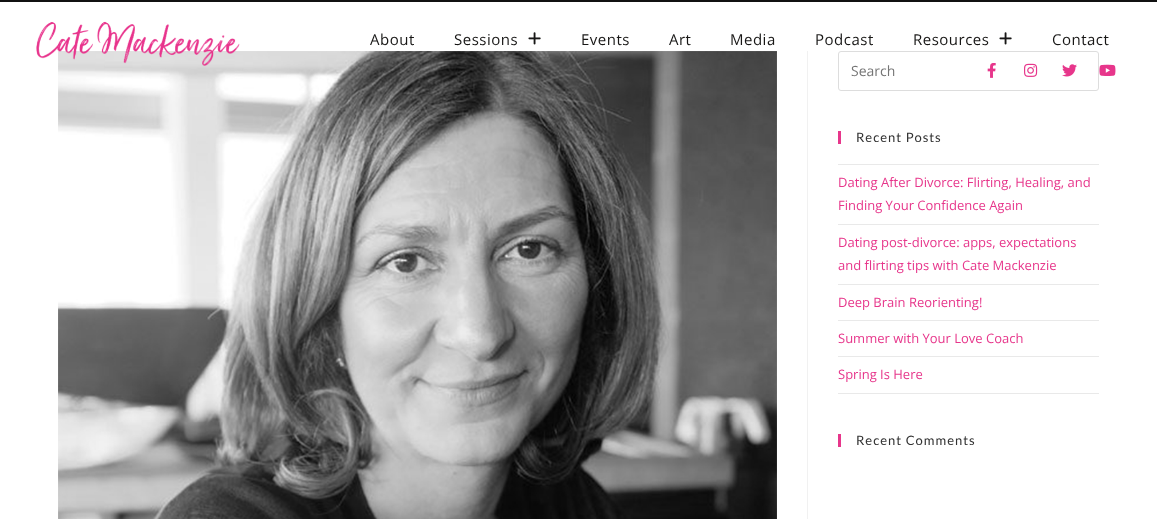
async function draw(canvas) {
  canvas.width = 1157;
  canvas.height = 519;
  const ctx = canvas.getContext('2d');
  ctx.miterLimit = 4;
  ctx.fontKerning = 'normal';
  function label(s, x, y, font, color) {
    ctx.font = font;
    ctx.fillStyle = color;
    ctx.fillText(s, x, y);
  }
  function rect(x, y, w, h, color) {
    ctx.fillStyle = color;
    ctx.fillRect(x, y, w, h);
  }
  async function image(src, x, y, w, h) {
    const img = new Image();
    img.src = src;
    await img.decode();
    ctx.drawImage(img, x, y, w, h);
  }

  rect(0, 0, 1157, 519, '#fff');
  rect(0, 0, 1157, 2, '#111');
  await image('assets/img7.png', 58, 51, 719, 468);
  await image('assets/img1.png', 36, 21, 204, 45);
  ctx.letterSpacing = '0.5px';
  label('About', 370, 45, '15px Open Sans', '#181716');
  label('Sessions', 454, 45, '15px Open Sans', '#181716');
  await image('assets/img2.png', 528, 32, 13, 13);
  label('Events', 581, 45, '15px Open Sans', '#181716');
  label('Art', 669, 45, '15px Open Sans', '#181716');
  label('Media', 730, 45, '15px Open Sans', '#181716');
  label('Podcast', 815, 45, '15px Open Sans', '#181716');
  label('Resources', 913, 45, '15px Open Sans', '#181716');
  await image('assets/img2.png', 999, 32, 13, 13);
  label('Contact', 1052, 45, '15px Open Sans', '#181716');
  ctx.beginPath();
  ctx.roundRect(838.5, 51.5, 260, 39, 2.5);
  ctx.strokeStyle = '#ddd';
  ctx.stroke();
  await image('assets/img3.png', 987, 63, 9, 15);
  await image('assets/img4.png', 1024, 63, 14, 14);
  await image('assets/img5.png', 1062, 64, 15, 13);
  await image('assets/img6.png', 1099, 64, 17, 12);
  rect(807, 51, 1, 468, '#f1f1f1');
  ctx.letterSpacing = '0px';
  label('Search', 851, 76, '14px Open Sans', '#757575');
  rect(838, 131, 3, 13, '#e7368b');
  ctx.letterSpacing = '1px';
  label('Recent Posts', 856, 142, '13px Lato', '#333');
  rect(838, 164, 261, 1, '#e9e9e9');
  rect(838, 224, 261, 1, '#e9e9e9');
  ctx.letterSpacing = '0px';
  label('Dating After Divorce: Flirting, Healing, and', 838, 187, '13px Open Sans', '#e7368b');
  label('Finding Your Confidence Again', 838, 210, '13px Open Sans', '#e7368b');
  rect(838, 284, 261, 1, '#e9e9e9');
  label('Dating post-divorce: apps, expectations', 838, 247, '13px Open Sans', '#e7368b');
  label('and flirting tips with Cate Mackenzie', 838, 270, '13px Open Sans', '#e7368b');
  rect(838, 320, 261, 1, '#e9e9e9');
  label('Deep Brain Reorienting!', 838, 307, '13px Open Sans', '#e7368b');
  rect(838, 356, 261, 1, '#e9e9e9');
  label('Summer with Your Love Coach', 838, 343, '13px Open Sans', '#e7368b');
  rect(838, 393, 261, 1, '#e9e9e9');
  label('Spring Is Here', 838, 379, '13px Open Sans', '#e7368b');
  rect(838, 434, 3, 13, '#e7368b');
  ctx.letterSpacing = '1px';
  label('Recent Comments', 856, 445, '13px Lato', '#333');
}

draw(document.querySelector('canvas'));
